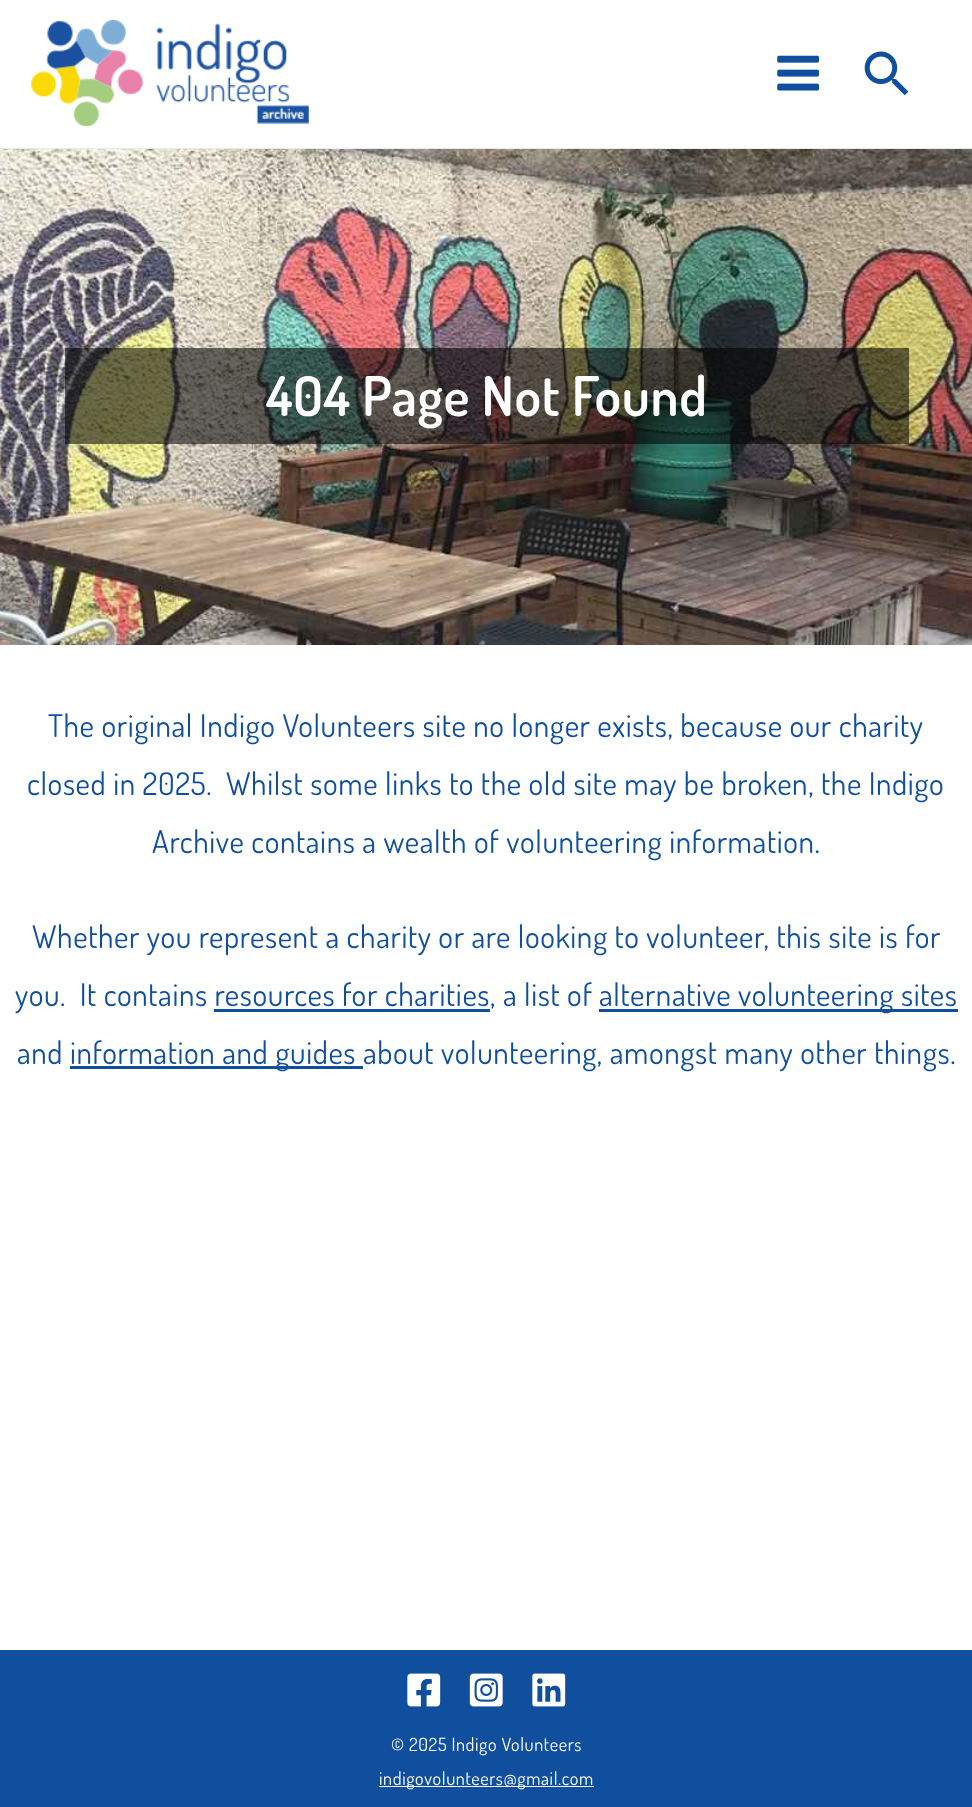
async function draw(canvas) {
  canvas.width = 972;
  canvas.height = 1807;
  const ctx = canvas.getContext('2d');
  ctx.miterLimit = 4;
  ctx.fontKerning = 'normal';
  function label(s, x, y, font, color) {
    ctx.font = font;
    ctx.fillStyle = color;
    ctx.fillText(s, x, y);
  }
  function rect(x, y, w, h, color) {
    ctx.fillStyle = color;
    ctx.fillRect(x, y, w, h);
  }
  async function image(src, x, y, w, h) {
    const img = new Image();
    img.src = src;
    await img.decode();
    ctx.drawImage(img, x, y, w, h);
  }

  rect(0, 0, 972, 1807, '#fff');
  rect(0, 148, 972, 1, '#eaeaea');
  await image('assets/img1.png', 31, 20, 278, 107);
  await image('assets/img2.png', 777, 55, 42, 36);
  await image('assets/img3.png', 864, 51, 44, 45);
  await image('assets/img4.png', 0, 149, 972, 496);
  rect(65, 348, 844, 96, '#02010191');
  ctx.letterSpacing = '0.62px';
  label('404 Page Not Found', 266, 416, '600 54.75px Dosis', '#fff');
  label('The original Indigo Volunteers site no longer exists, because our charity', 48, 737, '31.25px Dosis', '#104f9e');
  label('closed in 2025.  Whilst some links to the old site may be broken, the Indigo', 27, 795, '31.25px Dosis', '#104f9e');
  label('Archive contains a wealth of volunteering information.', 152, 853, '31.25px Dosis', '#104f9e');
  label('Whether you represent a charity or are looking to volunteer, this site is for', 32, 948, '31.25px Dosis', '#104f9e');
  label('you.  It contains resources for charities, a list of', 15, 1006, '31.25px Dosis', '#104f9e');
  rect(599, 1009, 359, 3, '#104f9e');
  label('alternative volunteering sites', 599, 1006, '31.25px Dosis', '#104f9e');
  rect(214, 1009, 276, 3, '#104f9e');
  label('and', 17, 1064, '31.25px Dosis', '#104f9e');
  rect(70, 1066, 293, 3, '#104f9e');
  label('information and guides about volunteering, amongst many other things.', 70, 1064, '31.25px Dosis', '#104f9e');
  rect(0, 1650, 972, 157, '#104f9e');
  await image('assets/img5.png', 407, 1673, 34, 34);
  await image('assets/img6.png', 469, 1673, 34, 34);
  await image('assets/img7.png', 532, 1673, 34, 34);
  label('© 2025 Indigo Volunteers', 391, 1751, '18.25px Dosis', '#fff');
  rect(379, 1786, 215, 1, '#fff');
  label('indigovolunteers@gmail.com', 379, 1785, '18.25px Dosis', '#fff');
}

draw(document.querySelector('canvas'));
